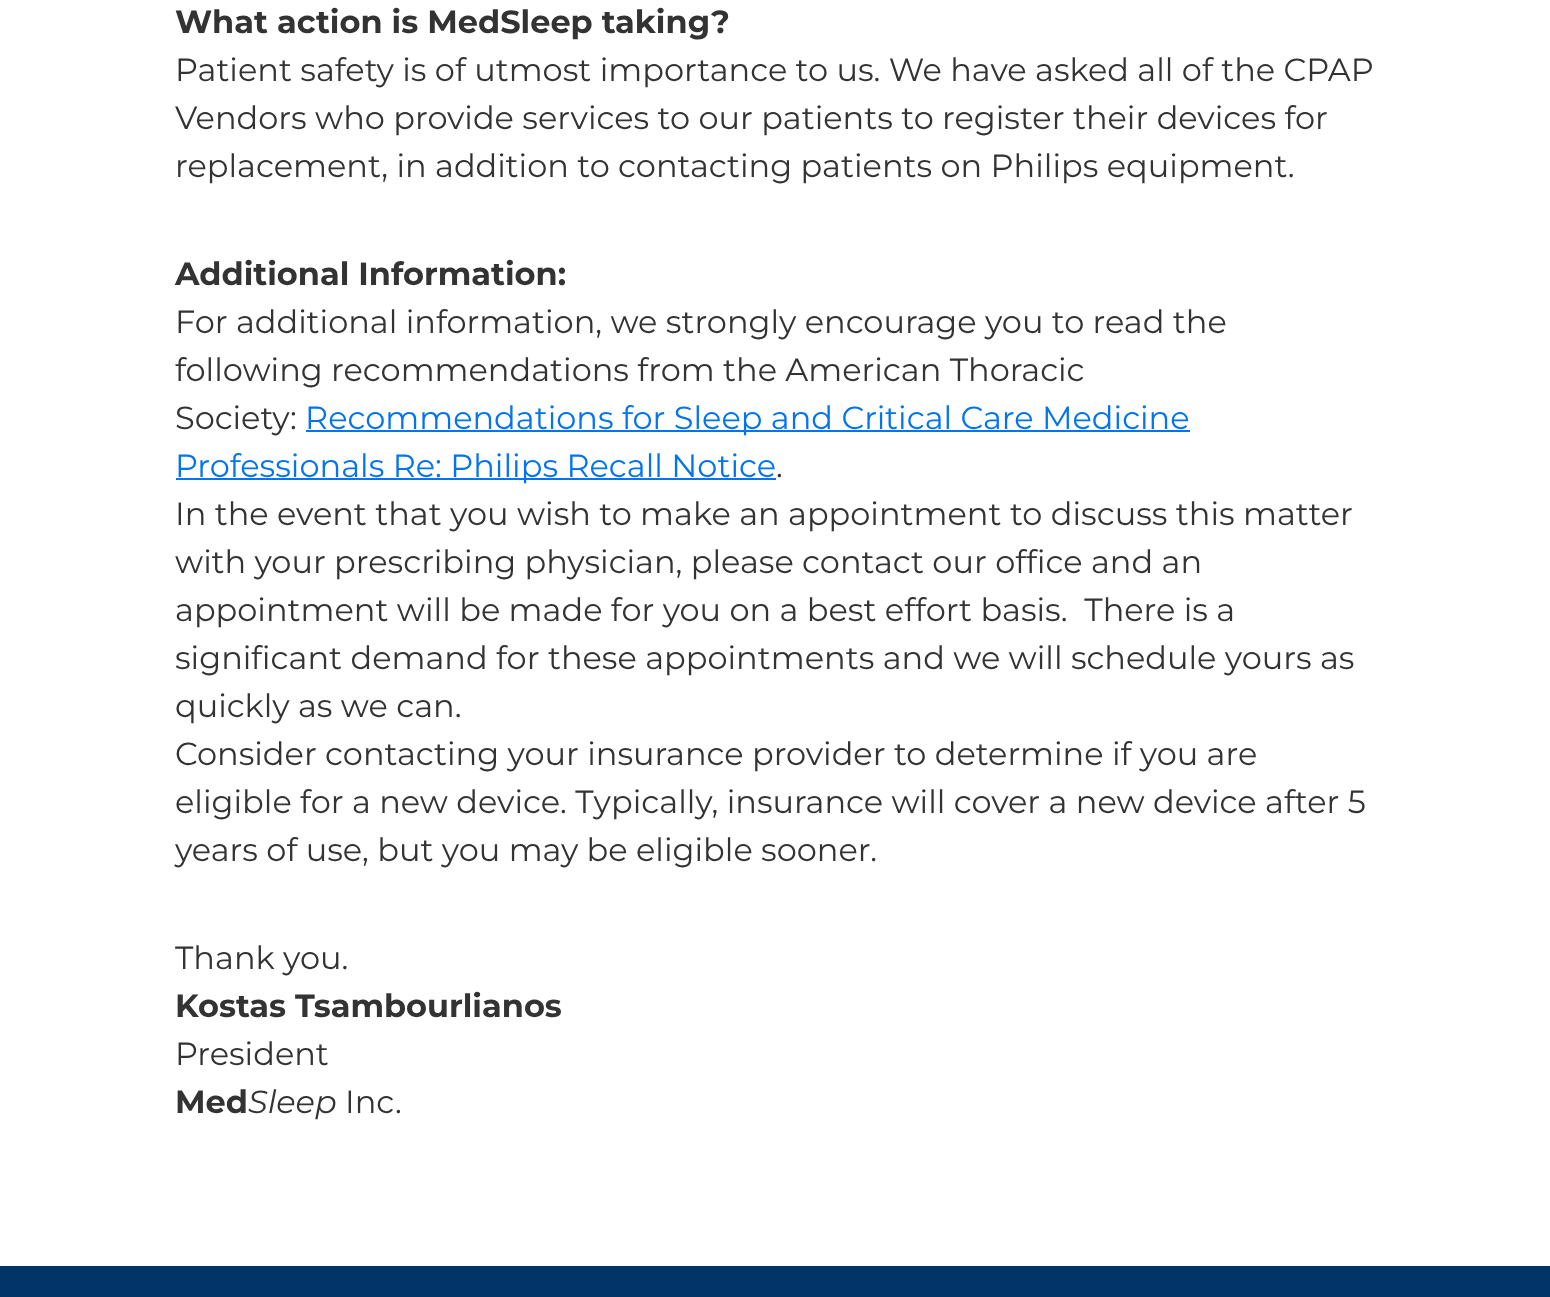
async function draw(canvas) {
  canvas.width = 1550;
  canvas.height = 1297;
  const ctx = canvas.getContext('2d');
  ctx.miterLimit = 4;
  ctx.fontKerning = 'normal';
  function label(s, x, y, font, color) {
    ctx.font = font;
    ctx.fillStyle = color;
    ctx.fillText(s, x, y);
  }
  function rect(x, y, w, h, color) {
    ctx.fillStyle = color;
    ctx.fillRect(x, y, w, h);
  }

  rect(0, 0, 1550, 1297, '#fff');
  label('What action is MedSleep taking?', 175, 33, 'bold 32px Montserrat', '#333');
  label('Patient safety is of utmost importance to us. We have asked all of the CPAP', 175, 81, '32px Montserrat', '#333');
  label('Vendors who provide services to our patients to register their devices for', 175, 129, '32px Montserrat', '#333');
  label('replacement, in addition to contacting patients on Philips equipment.', 175, 177, '32px Montserrat', '#333');
  label('Additional Information:', 175, 285, 'bold 32px Montserrat', '#333');
  label('For additional information, we strongly encourage you to read the', 175, 333, '32px Montserrat', '#333');
  label('following recommendations from the American Thoracic', 175, 381, '32px Montserrat', '#333');
  label('Society:', 175, 429, '32px Montserrat', '#333');
  rect(306, 430, 884, 2, '#0374ed');
  label('Recommendations for Sleep and Critical Care Medicine', 305, 429, '32px Montserrat', '#0374ed');
  rect(176, 478, 600, 2, '#0374ed');
  label('Professionals Re: Philips Recall Notice', 175, 477, '32px Montserrat', '#0374ed');
  label('.', 776, 477, '32px Montserrat', '#333');
  label('In the event that you wish to make an appointment to discuss this matter', 175, 525, '32px Montserrat', '#333');
  label('with your prescribing physician, please contact our office and an', 175, 573, '32px Montserrat', '#333');
  label('appointment will be made for you on a best effort basis.  There is a', 175, 621, '32px Montserrat', '#333');
  label('significant demand for these appointments and we will schedule yours as', 175, 669, '32px Montserrat', '#333');
  label('quickly as we can.', 175, 717, '32px Montserrat', '#333');
  label('Consider contacting your insurance provider to determine if you are', 175, 765, '32px Montserrat', '#333');
  label('eligible for a new device. Typically, insurance will cover a new device after 5', 175, 813, '32px Montserrat', '#333');
  label('years of use, but you may be eligible sooner.', 175, 861, '32px Montserrat', '#333');
  label('Thank you.', 175, 969, '32px Montserrat', '#333');
  label('Kostas Tsambourlianos', 175, 1017, 'bold 32px Montserrat', '#333');
  label('President', 175, 1065, '32px Montserrat', '#333');
  label('Med', 175, 1113, 'bold 32px Montserrat', '#333');
  label('Sleep', 248, 1113, 'italic 32px Montserrat', '#333');
  label('Inc.', 345, 1113, '32px Montserrat', '#333');
  rect(0, 1266, 1550, 31, '#033468');
}

draw(document.querySelector('canvas'));
